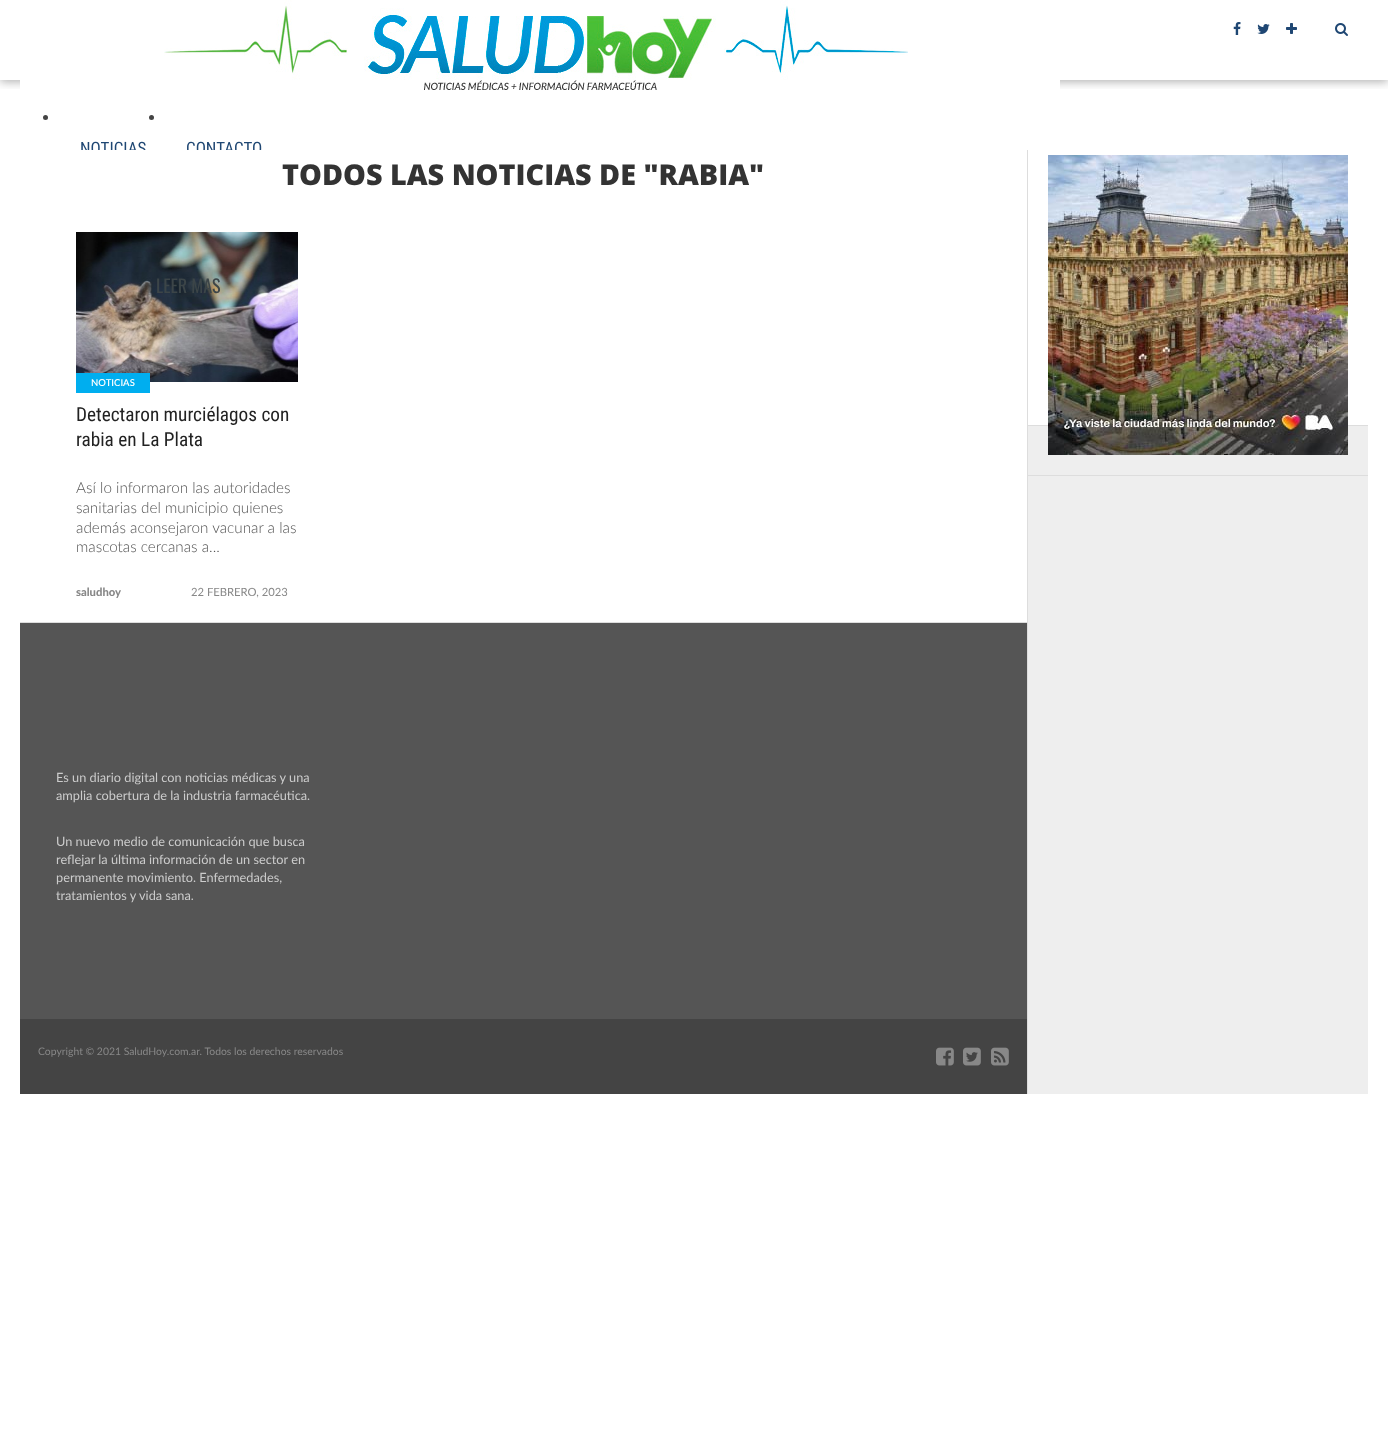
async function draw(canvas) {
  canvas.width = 1388;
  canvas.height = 1445;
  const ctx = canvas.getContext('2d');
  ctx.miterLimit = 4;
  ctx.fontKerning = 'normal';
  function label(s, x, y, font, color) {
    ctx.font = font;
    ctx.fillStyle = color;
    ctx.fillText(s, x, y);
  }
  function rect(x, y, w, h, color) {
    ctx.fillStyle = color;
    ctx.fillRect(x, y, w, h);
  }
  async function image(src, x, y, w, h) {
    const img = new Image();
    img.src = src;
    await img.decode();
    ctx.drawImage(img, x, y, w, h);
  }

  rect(0, 0, 1388, 1445, '#fff');
  ctx.save();
  ctx.beginPath();
  ctx.rect(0, 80, 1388, 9);
  ctx.clip();
  ctx.fillStyle = '#0000004d';
  ctx.filter = 'blur(5px)';
  ctx.beginPath();
  ctx.rect(0, 2, 1388, 80);
  ctx.fill();
  ctx.filter = 'none';
  ctx.restore();
  await image('assets/img1.png', 20, 0, 1040, 90);
  await image('assets/img2.png', 1233, 22, 8, 13);
  await image('assets/img3.png', 1257, 24, 13, 10);
  await image('assets/img4.png', 1286, 23, 11, 11);
  await image('assets/img5.png', 1335, 23, 13, 13);
  ctx.fillStyle = '#444';
  ctx.beginPath();
  ctx.arc(45.5, 117.5, 2.5, 0, 2 * Math.PI);
  ctx.fill();
  ctx.save();
  ctx.beginPath();
  ctx.rect(20, 0, 1348, 150);
  ctx.clip();
  label('NOTICIAS', 80, 154, '17px Roboto Condensed', '#1f4773');
  ctx.restore();
  ctx.beginPath();
  ctx.arc(151.5, 117.5, 2.5, 0, 2 * Math.PI);
  ctx.fill();
  ctx.save();
  ctx.beginPath();
  ctx.rect(20, 0, 1348, 150);
  ctx.clip();
  label('CONTACTO', 186, 154, '17px Roboto Condensed', '#1f4773');
  ctx.restore();
  label('TODOS LAS NOTICIAS DE "RABIA"', 282, 185, '800 28.75px Open Sans', '#333');
  rect(20, 622, 1007, 1, '#ddd');
  await image('assets/img6.png', 76, 232, 222, 150);
  label('LEER MAS', 156, 293, '18px Oswald', '#3c4548');
  rect(76, 373, 74, 20, '#00aeef');
  label('NOTICIAS', 91, 386, '600 9.5px Lato', '#fff');
  label('Detectaron murciélagos con', 76, 421, '19.25px Roboto Condensed', '#222');
  label('rabia en La Plata', 76, 446, '19.25px Roboto Condensed', '#222');
  label('Así lo informaron las autoridades', 76, 493, '300 15.25px Lato', '#555');
  label('sanitarias del municipio quienes', 76, 513, '300 15.25px Lato', '#555');
  label('además aconsejaron vacunar a las', 76, 533, '300 15.25px Lato', '#555');
  label('mascotas cercanas a...', 76, 552, '300 15.25px Lato', '#555');
  label('saludhoy', 76, 596, '900 11.25px Lato', '#888');
  label('22 FEBRERO, 2023', 191, 596, '11.25px Lato', '#888');
  rect(1028, 426, 340, 668, '#eee');
  rect(1027, 150, 1, 944, '#ddd');
  rect(1028, 425, 340, 1, '#ddd');
  rect(1028, 475, 340, 1, '#ddd');
  await image('assets/img7.png', 1048, 155, 300, 300);
  rect(20, 623, 1007, 396, '#555');
  label('Es un diario digital con noticias médicas y una', 56, 782, '12.75px Lato', '#ccc');
  label('amplia cobertura de la industria farmacéutica.', 56, 800, '12.75px Lato', '#ccc');
  label('Un nuevo medio de comunicación que busca', 56, 846, '12.75px Lato', '#ccc');
  label('reflejar la última información de un sector en', 56, 864, '12.75px Lato', '#ccc');
  label('permanente movimiento. Enfermedades,', 56, 882, '12.75px Lato', '#ccc');
  label('tratamientos y vida sana.', 56, 900, '12.75px Lato', '#ccc');
  rect(20, 1019, 1007, 75, '#444');
  label('Copyright © 2021 SaludHoy.com.ar. Todos los derechos reservados', 38, 1055, '10.4px Lato', '#888');
  await image('assets/img8.png', 936, 1047, 18, 19);
  await image('assets/img9.png', 963, 1047, 18, 19);
  await image('assets/img10.png', 991, 1047, 18, 19);
}

draw(document.querySelector('canvas'));
